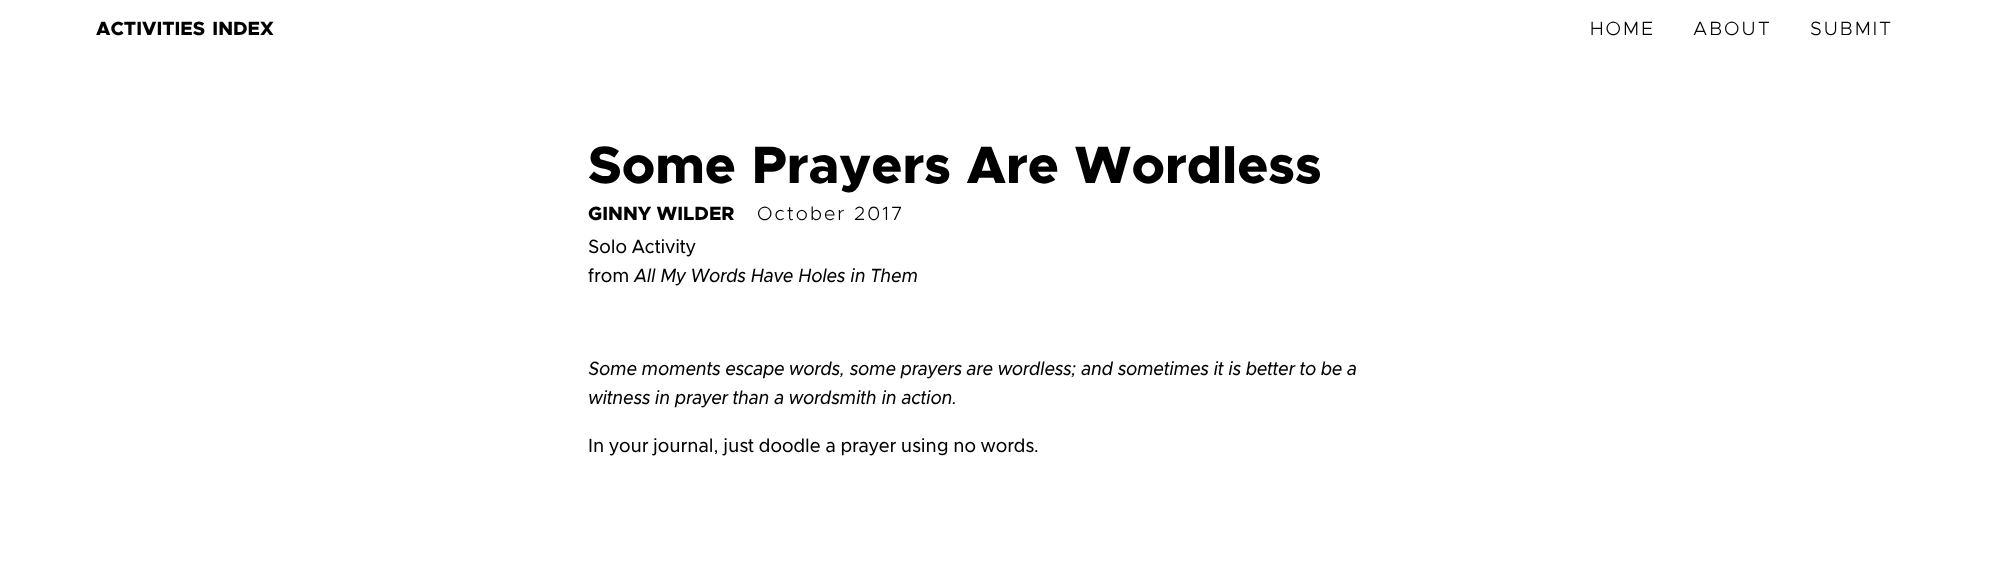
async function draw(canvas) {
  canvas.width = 2008;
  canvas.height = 562;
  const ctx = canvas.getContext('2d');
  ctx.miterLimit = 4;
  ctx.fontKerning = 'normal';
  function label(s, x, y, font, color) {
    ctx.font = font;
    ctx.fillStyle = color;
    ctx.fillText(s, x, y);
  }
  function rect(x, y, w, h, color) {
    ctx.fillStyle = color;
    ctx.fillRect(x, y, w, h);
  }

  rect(0, 0, 2008, 562, '#fff');
  ctx.wordSpacing = '2px';
  label('ACTIVITIES INDEX', 96, 35, '800 19.2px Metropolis', '#000');
  ctx.letterSpacing = '2px';
  ctx.wordSpacing = '0px';
  label('HOME', 1590, 35, '300 19.2px Metropolis', '#000');
  label('ABOUT', 1693, 35, '300 19.2px Metropolis', '#000');
  label('SUBMIT', 1810, 35, '300 19.2px Metropolis', '#000');
  ctx.letterSpacing = '0px';
  ctx.wordSpacing = '1px';
  label('Some Prayers Are Wordless', 588, 183, '800 52.75px Metropolis', '#000');
  ctx.wordSpacing = '0px';
  label('GINNY WILDER', 588, 220, '800 19.2px Metropolis', '#000');
  ctx.letterSpacing = '2px';
  label('October 2017', 757, 220, '300 19.2px Metropolis', '#000');
  ctx.letterSpacing = '0px';
  label('Solo Activity', 588, 253, '500 19.2px Metropolis', '#000');
  label('from', 588, 282, '500 19.2px Metropolis', '#000');
  ctx.wordSpacing = '0.25px';
  label('All My Words Have Holes in Them', 634, 282, 'italic 500 19.2px Metropolis', '#000');
  ctx.wordSpacing = '0px';
  label('Some moments escape words, some prayers are wordless; and sometimes it is better to be a', 588, 375, 'italic 500 19.2px Metropolis', '#000');
  label('witness in prayer than a wordsmith in action.', 588, 404, 'italic 500 19.2px Metropolis', '#000');
  label('In your journal, just doodle a prayer using no words.', 588, 452, '500 19.2px Metropolis', '#000');
}

draw(document.querySelector('canvas'));
